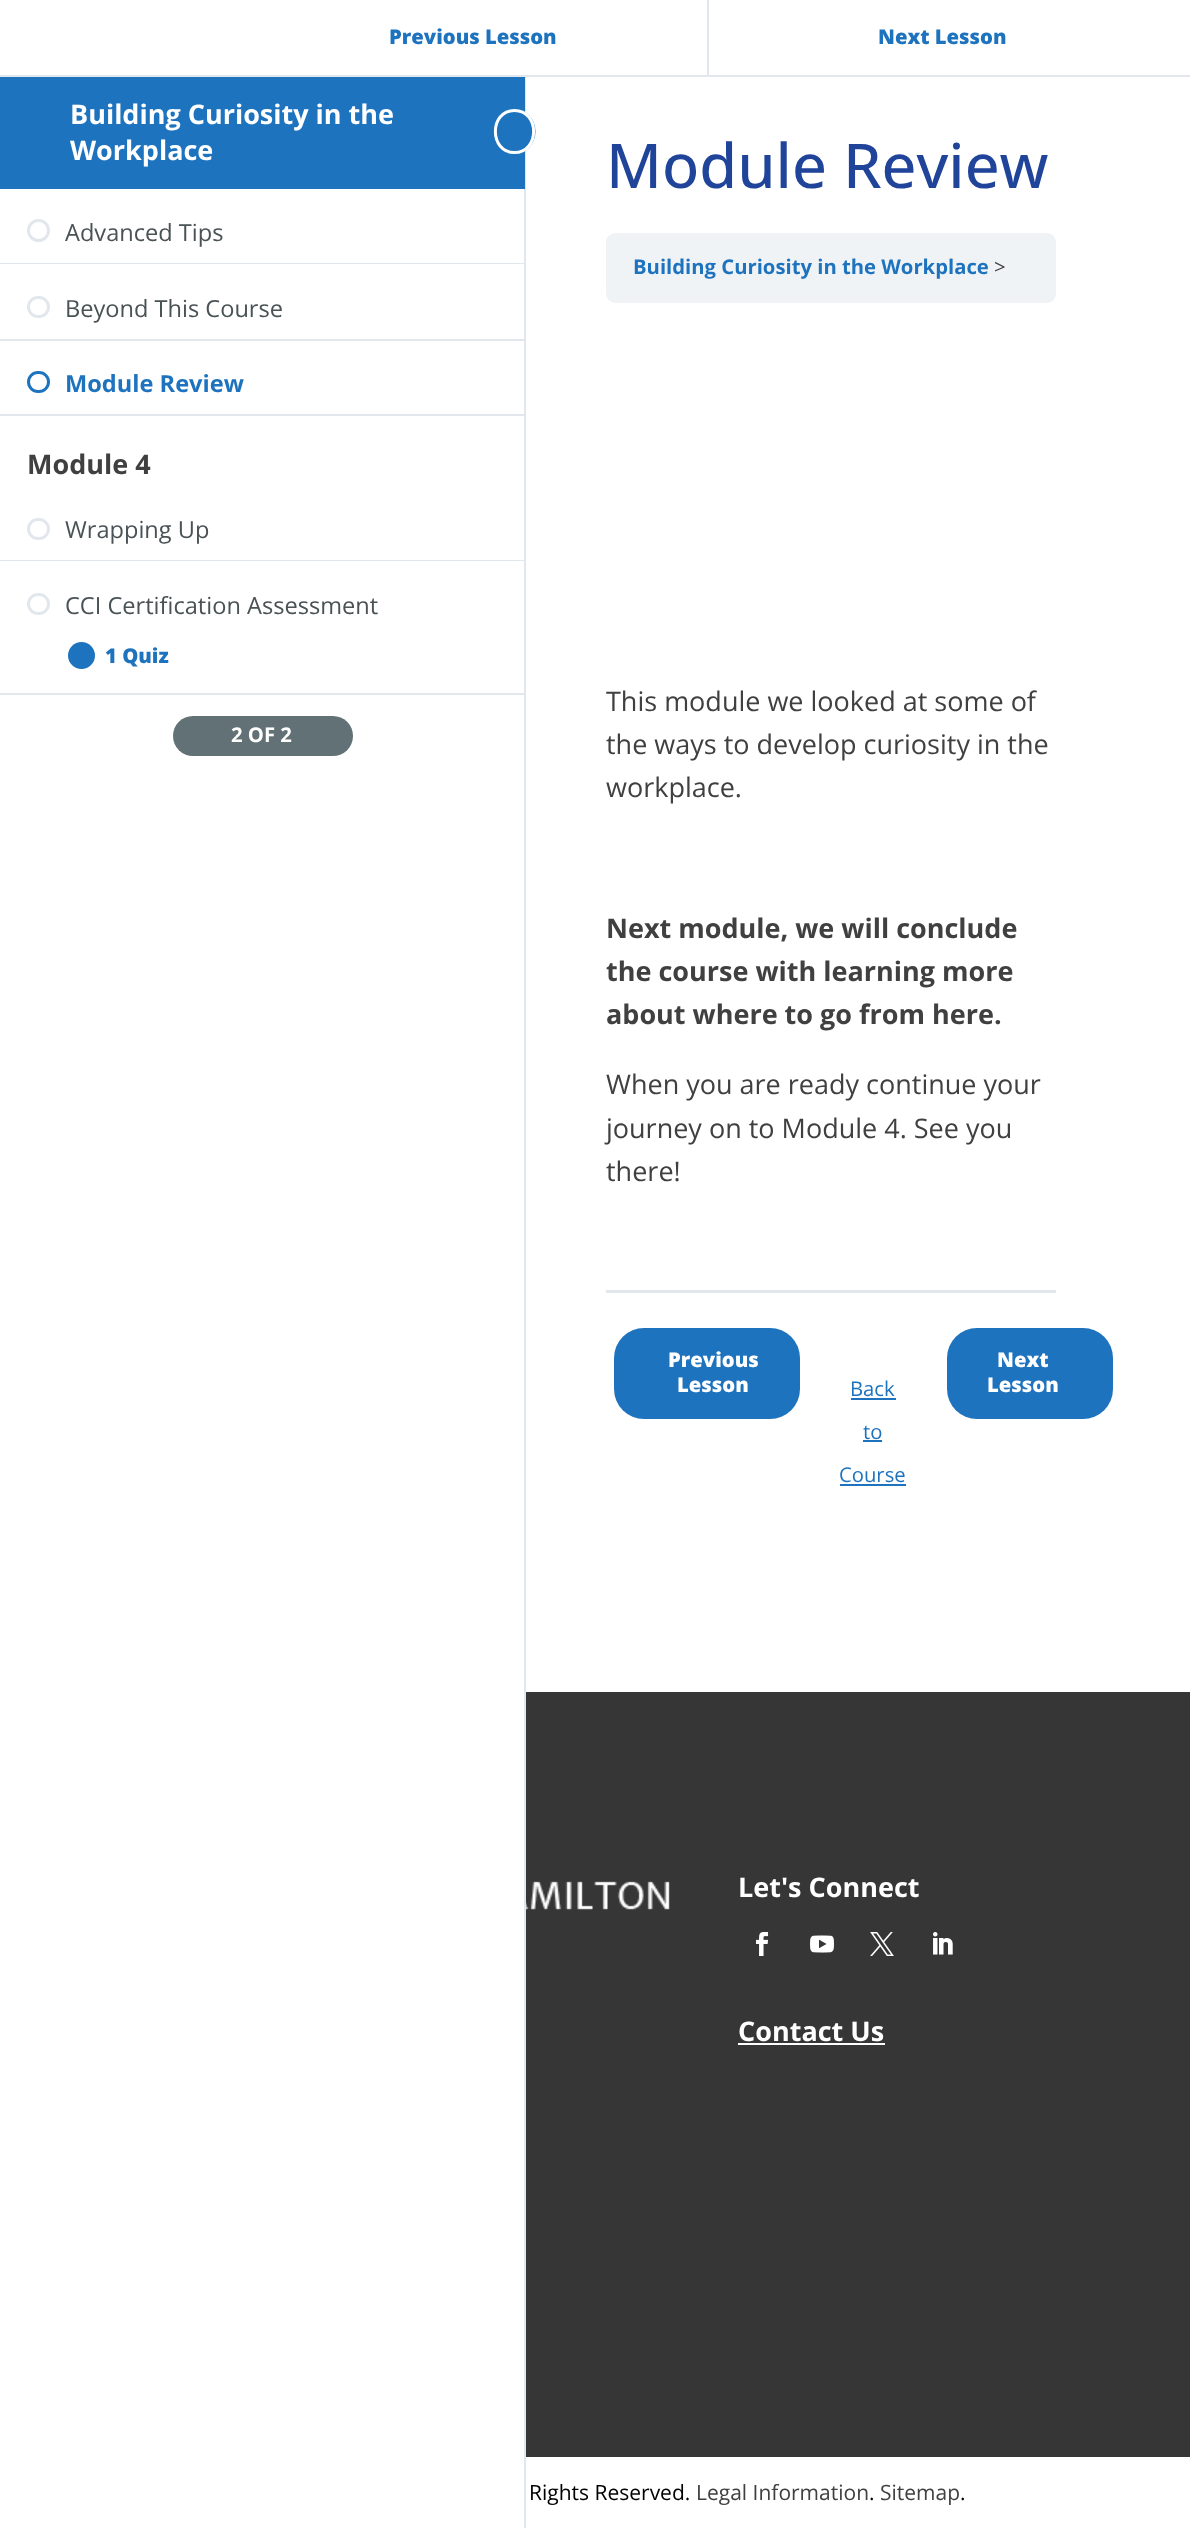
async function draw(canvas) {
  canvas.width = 1190;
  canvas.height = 2528;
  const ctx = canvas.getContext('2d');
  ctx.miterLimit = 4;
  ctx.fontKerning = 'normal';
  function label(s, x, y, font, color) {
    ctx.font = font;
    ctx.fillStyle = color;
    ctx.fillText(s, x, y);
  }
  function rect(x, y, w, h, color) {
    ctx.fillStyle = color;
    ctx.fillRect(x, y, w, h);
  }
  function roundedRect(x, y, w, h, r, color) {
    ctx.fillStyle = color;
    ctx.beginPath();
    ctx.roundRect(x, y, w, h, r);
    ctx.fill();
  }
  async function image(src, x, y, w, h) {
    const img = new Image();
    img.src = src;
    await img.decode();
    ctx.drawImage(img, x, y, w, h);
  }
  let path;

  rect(0, 0, 1190, 2528, '#fff');
  rect(524, 77, 2, 2451, '#e2e7ed');
  rect(0, 77, 525, 112, '#1e73be');
  label('Building Curiosity in the', 70, 124, 'bold 27px Open Sans', '#fff');
  label('Workplace', 70, 160, 'bold 27px Open Sans', '#fff');
  ctx.fillStyle = '#1e73be';
  ctx.beginPath();
  ctx.ellipse(514.5, 131.5, 21, 22.5, 0, 0, 2 * Math.PI);
  ctx.fill();
  path = new Path2D('M514.5 110.5C540 110.5 540 152.5 514.5 152.5C489 152.5 489 110.5 514.5 110.5Z');
  ctx.strokeStyle = '#fff';
  ctx.lineWidth = 3;
  ctx.stroke(path);
  rect(0, 263, 524, 1, '#e2e7ed');
  ctx.beginPath();
  ctx.arc(38.5, 230.5, 10, 0, 2 * Math.PI);
  ctx.strokeStyle = '#e2e7ed';
  ctx.stroke();
  label('Advanced Tips', 65, 241, '23.6px Open Sans', '#495255');
  rect(0, 339, 524, 2, '#e2e7ed');
  ctx.beginPath();
  ctx.roundRect(28.5, 297.5, 20, 19, 9.5);
  ctx.stroke();
  label('Beyond This Course', 65, 317, '23.6px Open Sans', '#495255');
  rect(0, 414, 524, 2, '#e2e7ed');
  ctx.beginPath();
  ctx.roundRect(28.5, 372.5, 20, 19, 9.5);
  ctx.strokeStyle = '#1e73be';
  ctx.stroke();
  label('Module Review', 65, 392, 'bold 23.6px Open Sans', '#1e73be');
  label('Module 4', 27, 474, 'bold 27px Open Sans', '#404040');
  rect(0, 560, 524, 1, '#e2e7ed');
  ctx.beginPath();
  ctx.roundRect(28.5, 519.5, 20, 19, 9.5);
  ctx.strokeStyle = '#e2e7ed';
  ctx.stroke();
  label('Wrapping Up', 65, 538, '23.6px Open Sans', '#495255');
  rect(0, 693, 524, 2, '#e2e7ed');
  ctx.beginPath();
  ctx.roundRect(28.5, 594.5, 20, 19, 9.5);
  ctx.stroke();
  label('CCI Certification Assessment', 65, 614, '23.6px Open Sans', '#495255');
  ctx.fillStyle = '#1e73be';
  ctx.beginPath();
  ctx.arc(81.5, 655.5, 13.5, 0, 2 * Math.PI);
  ctx.fill();
  label('1 Quiz', 105, 663, '800 20.25px Open Sans', '#1e73be');
  roundedRect(173, 716, 180, 40, 20, '#617175');
  label('2 OF 2', 231, 742, 'bold 20.25px Open Sans', '#fff');
  rect(0, 75, 1190, 2, '#e2e7ed');
  rect(707, 0, 2, 75, '#e2e7ed');
  label('Previous Lesson', 389, 44, '800 20.25px Open Sans', '#1e73be');
  label('Next Lesson', 878, 44, '800 20.25px Open Sans', '#1e73be');
  label('Module Review', 606, 188, '500 61.5px Open Sans', '#20449a');
  roundedRect(606, 233, 450, 70, 9, '#f0f3f6');
  label('Building Curiosity in the Workplace', 633, 274, 'bold 20.25px Open Sans', '#1e73be');
  label('>', 994, 274, '20.25px Open Sans', '#404040');
  label('This module we looked at some of', 606, 711, '27px Open Sans', '#404040');
  label('the ways to develop curiosity in the', 606, 754, '27px Open Sans', '#404040');
  label('workplace.', 606, 797, '27px Open Sans', '#404040');
  label('Next module, we will conclude', 606, 938, 'bold 27px Open Sans', '#404040');
  label('the course with learning more', 606, 981, 'bold 27px Open Sans', '#404040');
  label('about where to go from here.', 606, 1024, 'bold 27px Open Sans', '#404040');
  label('When you are ready continue your', 606, 1094, '27px Open Sans', '#404040');
  label('journey on to Module 4. See you', 606, 1138, '27px Open Sans', '#404040');
  label('there!', 606, 1181, '27px Open Sans', '#404040');
  rect(606, 1290, 450, 3, '#e2e7ed');
  roundedRect(614, 1328, 186, 91, 30, '#1e73be');
  label('Previous', 668, 1367, '800 20.25px Open Sans', '#fff');
  label('Lesson', 677, 1392, '800 20.25px Open Sans', '#fff');
  roundedRect(947, 1328, 166, 91, 30, '#1e73be');
  label('Next', 997, 1367, '800 20.25px Open Sans', '#fff');
  label('Lesson', 987, 1392, '800 20.25px Open Sans', '#fff');
  label('Back', 850, 1396, '20.25px Open Sans', '#1e73be');
  rect(851, 1398, 45, 2, '#1e73be');
  label('to', 863, 1439, '20.25px Open Sans', '#1e73be');
  rect(863, 1440, 19, 2, '#1e73be');
  label('Course', 839, 1482, '20.25px Open Sans', '#1e73be');
  rect(840, 1484, 66, 2, '#1e73be');
  rect(526, 1692, 664, 765, '#363636');
  await image('assets/img1.png', 526, 1881, 144, 29);
  label('Let\'s Connect', 738, 1897, 'bold 27px Open Sans', '#fff');
  await image('assets/img2.png', 756, 1932, 13, 24);
  await image('assets/img3.png', 810, 1935, 24, 18);
  await image('assets/img4.png', 870, 1932, 24, 24);
  await image('assets/img5.png', 933, 1932, 20, 23);
  label('Contact Us', 738, 2041, 'bold 27px Open Sans', '#fff');
  rect(738, 2043, 147, 2, '#fff');
  label('Rights Reserved.', 529, 2500, '21px Open Sans', '#000');
  label('Legal Information', 696, 2500, '21px Open Sans', '#404040');
  label('.', 869, 2500, '21px Open Sans', '#000');
  label('Sitemap', 880, 2500, '21px Open Sans', '#404040');
  label('.', 960, 2500, '21px Open Sans', '#000');
}

draw(document.querySelector('canvas'));
